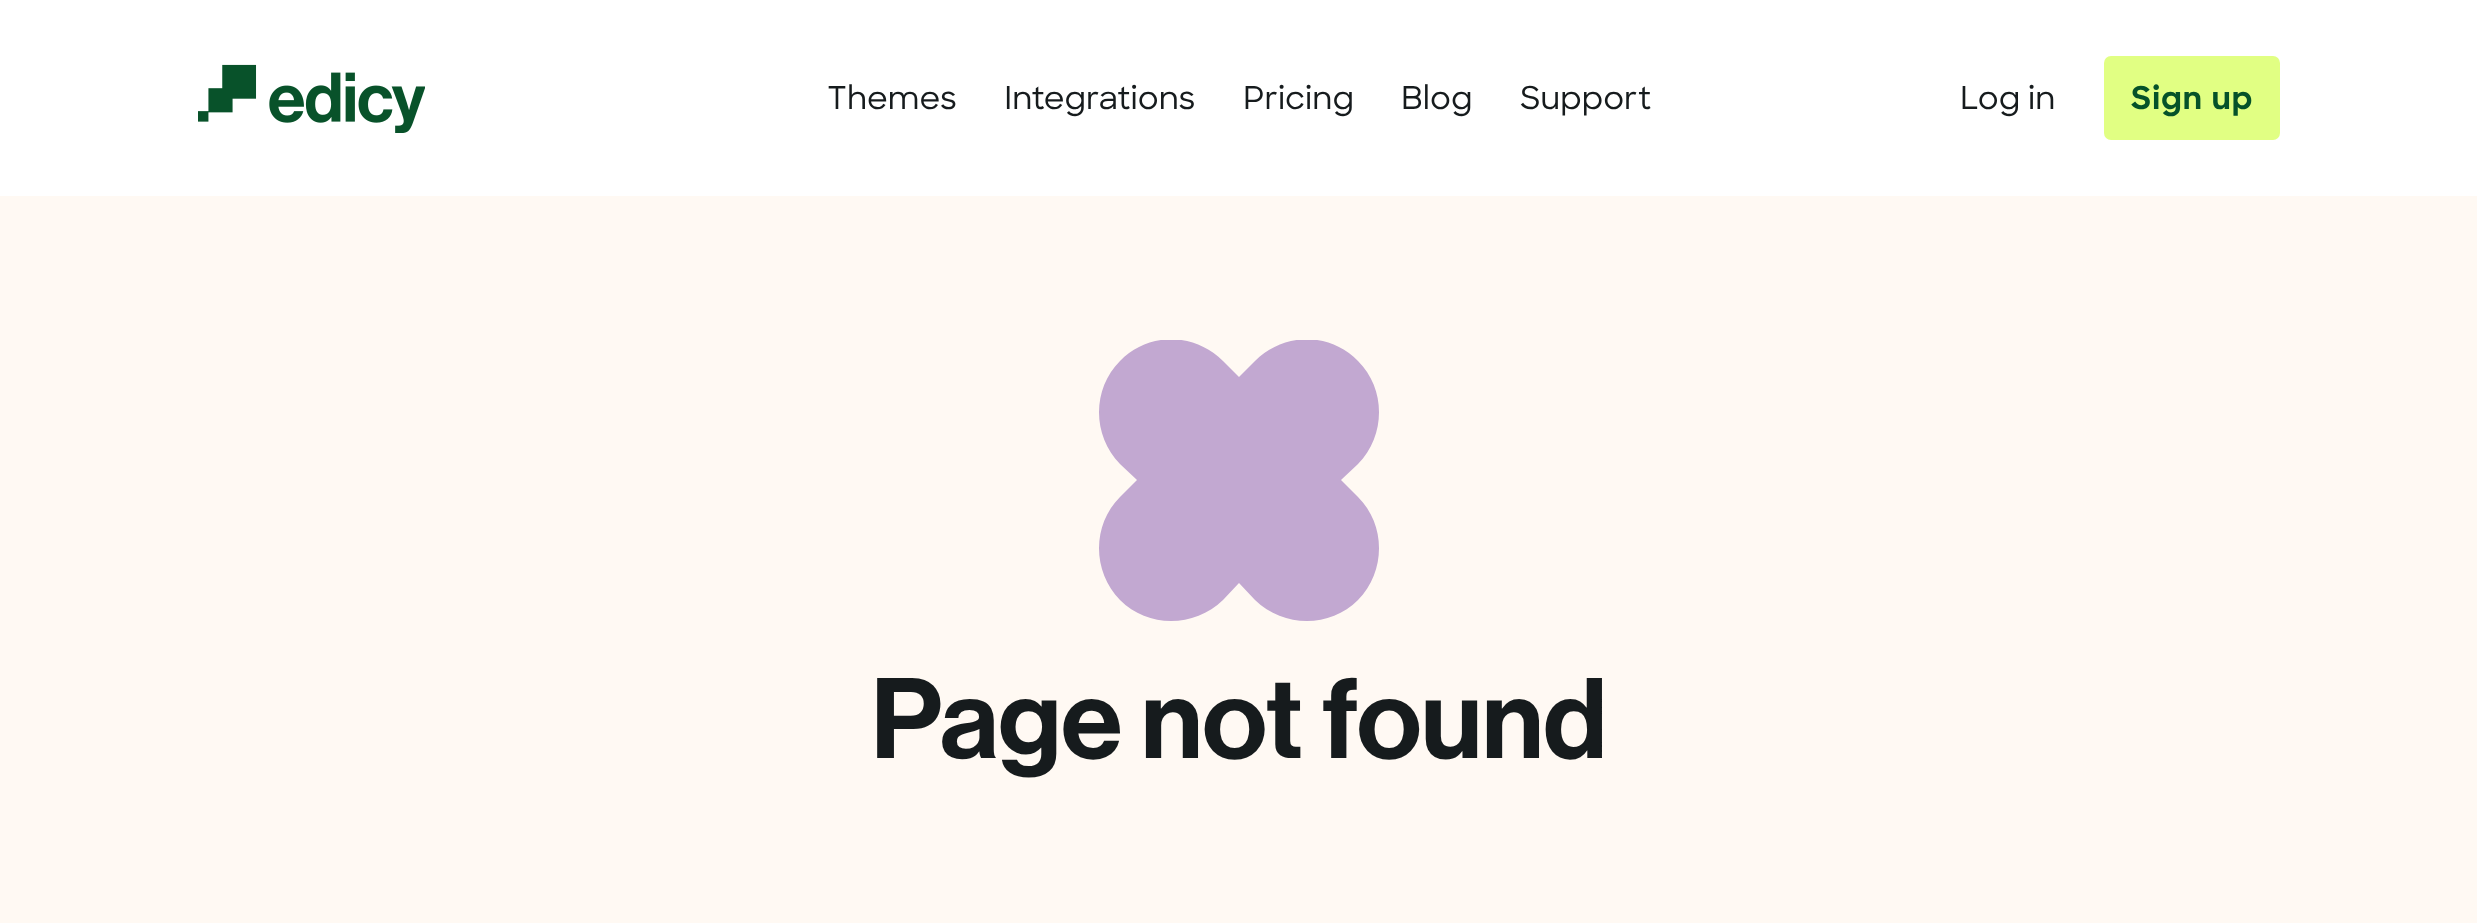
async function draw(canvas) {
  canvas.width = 2477;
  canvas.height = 923;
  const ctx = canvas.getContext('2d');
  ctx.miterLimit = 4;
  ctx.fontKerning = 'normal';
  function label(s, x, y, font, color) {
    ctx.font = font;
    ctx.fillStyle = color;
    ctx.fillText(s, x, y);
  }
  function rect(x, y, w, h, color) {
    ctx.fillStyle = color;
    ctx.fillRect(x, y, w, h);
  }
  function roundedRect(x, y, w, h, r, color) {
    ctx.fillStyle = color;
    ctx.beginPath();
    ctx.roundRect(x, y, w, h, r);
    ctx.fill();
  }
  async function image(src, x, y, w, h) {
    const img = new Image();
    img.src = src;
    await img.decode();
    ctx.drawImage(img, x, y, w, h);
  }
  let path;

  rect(0, 0, 2477, 923, '#fff');
  await image('assets/img1.png', 198, 64, 227, 69);
  label('Themes', 827, 109, '500 31.5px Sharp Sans', '#161b1d');
  label('Integrations', 1004, 109, '500 31.5px Sharp Sans', '#161b1d');
  label('Pricing', 1243, 109, '500 31.5px Sharp Sans', '#161b1d');
  label('Blog', 1401, 109, '500 31.5px Sharp Sans', '#161b1d');
  label('Support', 1520, 109, '500 31.5px Sharp Sans', '#161b1d');
  label('Log in', 1960, 109, '500 31.5px Sharp Sans', '#161b1d');
  roundedRect(2104, 56, 176, 84, 7, '#e1ff83');
  ctx.letterSpacing = '1px';
  label('Sign up', 2131, 109, 'bold 31.5px Sharp Sans', '#055229');
  rect(0, 196, 2477, 727, '#fff9f3');
  ctx.save();
  ctx.beginPath();
  ctx.rect(1099, 340, 280, 281);
  ctx.clip();
  ctx.fillStyle = '#c2a8d1';
  path = new Path2D('M1358 497L1341 480L1358 464C1386 435 1386 389 1358 361C1330 332 1284 332 1255 361L1239 377L1223 361C1194 332 1148 332 1120 361C1092 389 1092 435 1120 464L1137 480L1120 497C1092 525 1092 571 1120 600C1148 628 1194 628 1223 600L1239 583L1255 600C1284 628 1330 628 1358 600C1386 571 1386 525 1358 497Z');
  ctx.fill(path);
  ctx.restore();
  ctx.letterSpacing = '0px';
  label('Page not found', 871, 758, '500 112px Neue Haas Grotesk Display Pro', '#161b1d');
}

draw(document.querySelector('canvas'));
